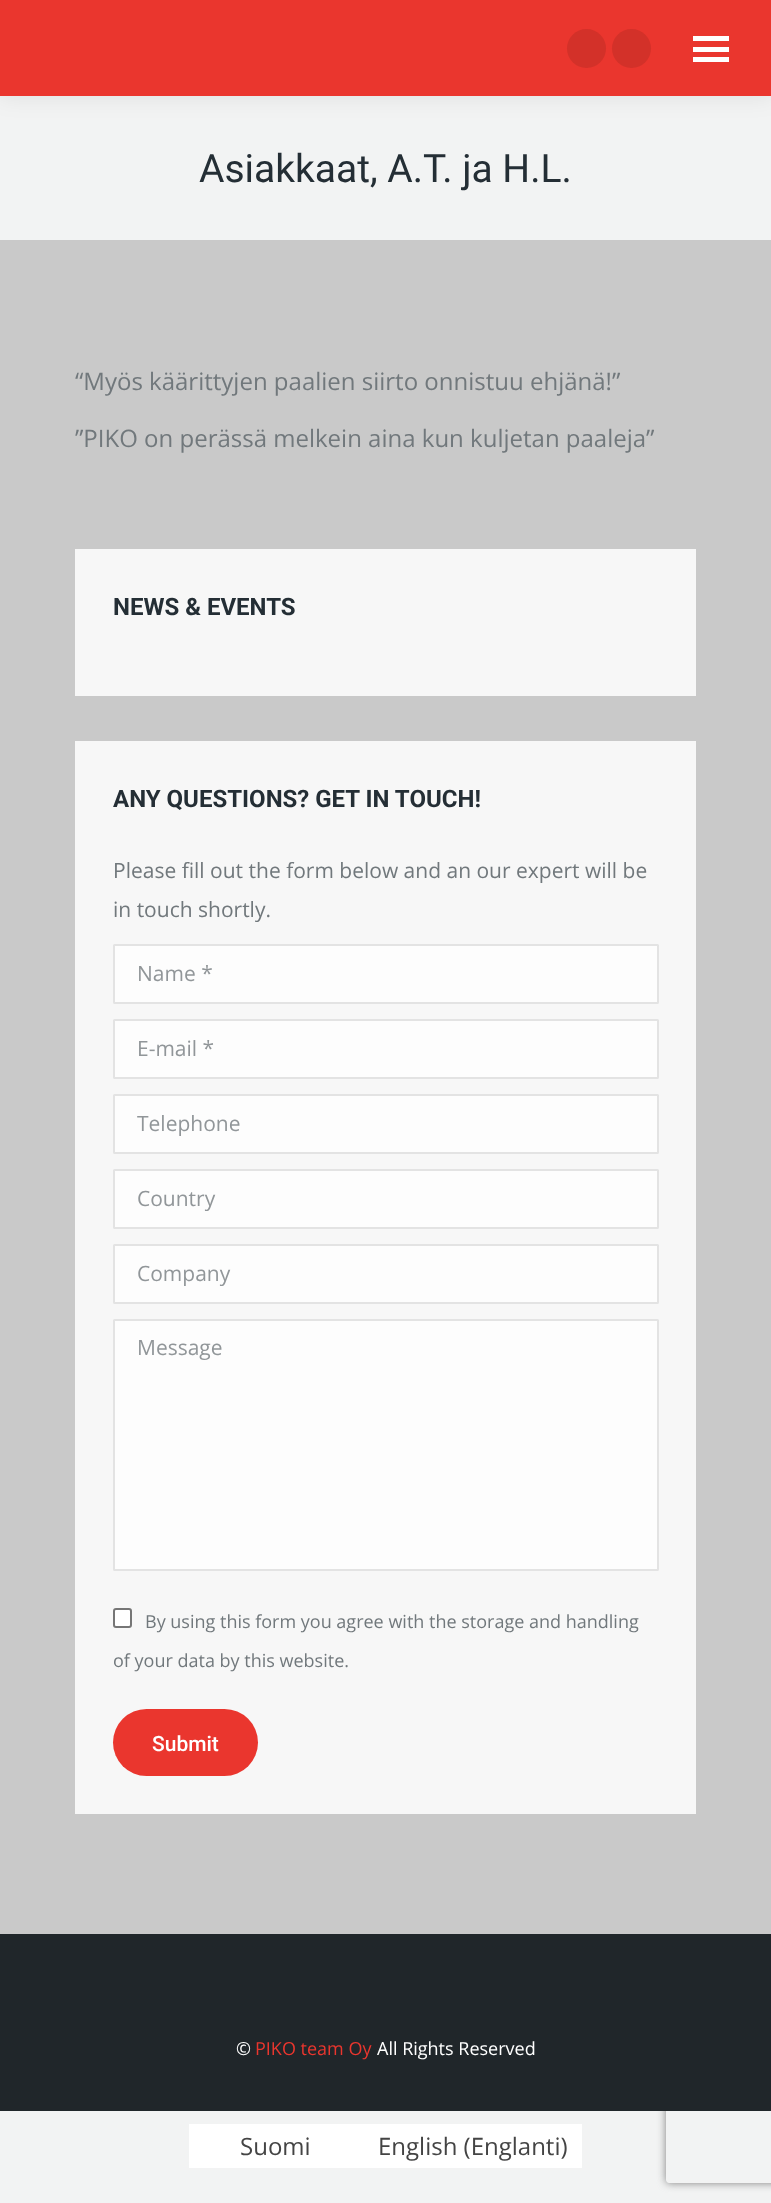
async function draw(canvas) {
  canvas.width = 771;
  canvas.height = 2203;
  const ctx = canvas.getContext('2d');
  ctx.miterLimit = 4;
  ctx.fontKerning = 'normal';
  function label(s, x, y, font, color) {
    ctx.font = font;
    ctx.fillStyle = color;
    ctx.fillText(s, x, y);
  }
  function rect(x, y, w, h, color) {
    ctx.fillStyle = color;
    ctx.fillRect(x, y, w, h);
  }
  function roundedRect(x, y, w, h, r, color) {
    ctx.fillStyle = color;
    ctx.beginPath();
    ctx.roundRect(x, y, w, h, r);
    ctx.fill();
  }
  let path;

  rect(0, 0, 771, 2203, '#f2f3f3');
  rect(0, 240, 771, 1694, '#c9c9c9');
  ctx.fillStyle = '#00000012';
  ctx.filter = 'blur(11px)';
  ctx.beginPath();
  ctx.rect(-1, -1, 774, 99);
  ctx.fill();
  ctx.filter = 'none';
  rect(0, 0, 771, 96, '#ea362e');
  ctx.fillStyle = '#d33129';
  ctx.beginPath();
  ctx.arc(586.5, 48.5, 19.5, 0, 2 * Math.PI);
  ctx.fill();
  ctx.beginPath();
  ctx.arc(631.5, 48.5, 19.5, 0, 2 * Math.PI);
  ctx.fill();
  rect(693, 36, 36, 5, '#fff');
  rect(693, 47, 36, 5, '#fff');
  rect(693, 57, 36, 5, '#fff');
  label('Asiakkaat, A.T. ja H.L.', 199, 182, '39px Roboto', '#242e35');
  label('“Myös käärittyjen paalien siirto onnistuu ehjänä!”', 75, 390, '24px Open Sans', '#71787c');
  label('”PIKO on perässä melkein aina kun kuljetan paaleja”', 75, 447, '24px Open Sans', '#71787c');
  rect(75, 549, 621, 147, '#f7f7f7');
  label('NEWS & EVENTS', 113, 615, 'bold 24px Roboto', '#242e35');
  rect(75, 741, 621, 1073, '#f7f7f7');
  label('ANY QUESTIONS? GET IN TOUCH!', 113, 807, 'bold 24px Roboto', '#242e35');
  label('Please fill out the form below and an our expert will be', 113, 878, '21px Open Sans', '#71787c');
  label('in touch shortly.', 113, 917, '21px Open Sans', '#71787c');
  roundedRect(113, 944, 546, 60, 1.5, '#fdfdfd');
  ctx.beginPath();
  ctx.roundRect(114, 945, 544, 58, 0.5);
  ctx.strokeStyle = '#33333321';
  ctx.lineWidth = 2;
  ctx.stroke();
  label('Name *', 137, 981, '21px Open Sans', '#919699');
  roundedRect(113, 1019, 546, 60, 1.5, '#fdfdfd');
  ctx.beginPath();
  ctx.roundRect(114, 1020, 544, 58, 0.5);
  ctx.stroke();
  label('E-mail *', 137, 1056, '21px Open Sans', '#919699');
  roundedRect(113, 1094, 546, 60, 1.5, '#fdfdfd');
  ctx.beginPath();
  ctx.roundRect(114, 1095, 544, 58, 0.5);
  ctx.stroke();
  label('Telephone', 137, 1131, '21px Open Sans', '#919699');
  roundedRect(113, 1169, 546, 60, 1.5, '#fdfdfd');
  ctx.beginPath();
  ctx.roundRect(114, 1170, 544, 58, 0.5);
  ctx.stroke();
  label('Country', 137, 1206, '21px Open Sans', '#919699');
  roundedRect(113, 1244, 546, 60, 1.5, '#fdfdfd');
  ctx.beginPath();
  ctx.roundRect(114, 1245, 544, 58, 0.5);
  ctx.stroke();
  label('Company', 137, 1281, '21px Open Sans', '#919699');
  roundedRect(113, 1319, 546, 252, 1.5, '#fdfdfd');
  ctx.beginPath();
  ctx.roundRect(114, 1320, 544, 250, 0.5);
  ctx.stroke();
  label('Message', 137, 1355, '21px Open Sans', '#919699');
  ctx.fillStyle = '#fff';
  ctx.beginPath();
  ctx.roundRect(114, 1609, 17, 18, 2);
  ctx.fill();
  ctx.strokeStyle = '#767676';
  ctx.stroke();
  label('By using this form you agree with the storage and handling', 145, 1628, '18px Open Sans', '#71787c');
  label('of your data by this website.', 113, 1667, '18px Open Sans', '#71787c');
  roundedRect(113, 1709, 145, 67, 33.5, '#ea362e');
  label('Submit', 152, 1751, '500 21px Roboto', '#fff');
  ctx.save();
  path = new Path2D('M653 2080H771V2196H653ZM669 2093H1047C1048.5 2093 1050 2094.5 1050 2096V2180C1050 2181.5 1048.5 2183 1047 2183H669C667.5 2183 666 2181.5 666 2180V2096C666 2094.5 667.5 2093 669 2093Z');
  ctx.clip(path, 'evenodd');
  ctx.fillStyle = '#808080';
  ctx.filter = 'blur(4px)';
  ctx.beginPath();
  ctx.roundRect(666, 2093, 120, 90, 3);
  ctx.fill();
  ctx.filter = 'none';
  ctx.restore();
  rect(0, 1934, 771, 177, '#20262a');
  label('©', 236, 2055, '18px Open Sans', '#fff');
  label('PIKO team Oy', 255, 2055, '18px Open Sans', '#ea362e');
  label('All Rights Reserved', 377, 2055, '18px Open Sans', '#fff');
  rect(189, 2124, 393, 44, '#fff');
  label('Suomi', 240, 2155, '24px Open Sans', '#444');
  label('English (Englanti)', 378, 2155, '24px Open Sans', '#444');
}

draw(document.querySelector('canvas'));
